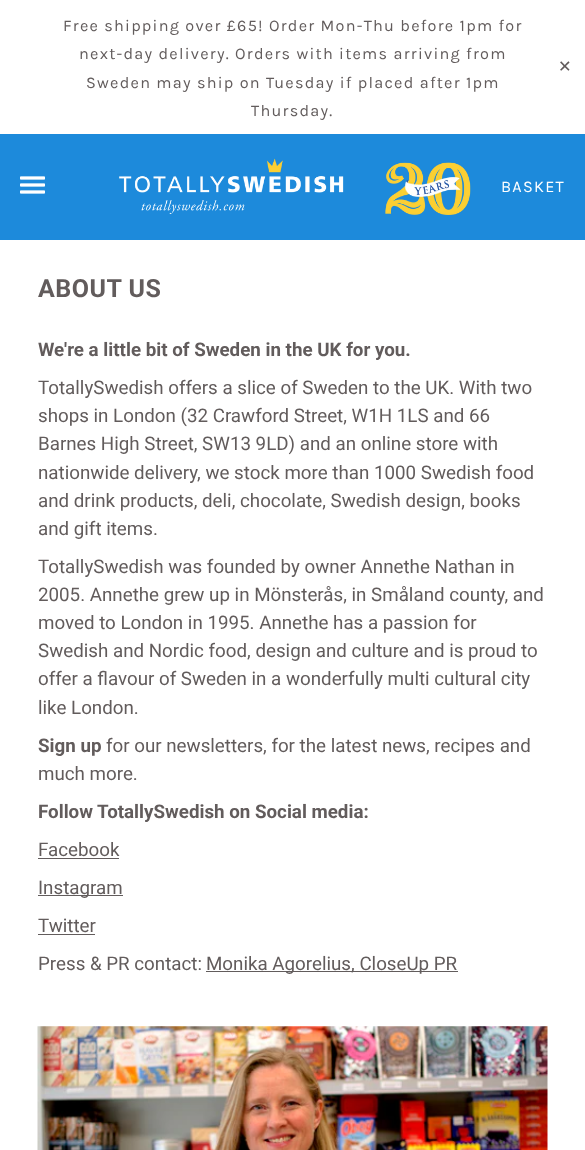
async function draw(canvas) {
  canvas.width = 585;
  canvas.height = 1150;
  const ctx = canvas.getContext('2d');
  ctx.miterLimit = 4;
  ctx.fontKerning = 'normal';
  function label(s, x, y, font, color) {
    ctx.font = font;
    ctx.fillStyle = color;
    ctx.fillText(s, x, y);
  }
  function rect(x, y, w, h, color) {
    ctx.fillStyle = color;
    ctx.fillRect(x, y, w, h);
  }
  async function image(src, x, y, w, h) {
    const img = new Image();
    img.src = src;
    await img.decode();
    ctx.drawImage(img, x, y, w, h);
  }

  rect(0, 0, 585, 1150, '#fff');
  ctx.letterSpacing = '1.25px';
  label('Free shipping over £65! Order Mon-Thu before 1pm for', 63, 31, '16.25px Karla', '#625c5c');
  label('next-day delivery. Orders with items arriving from', 79, 59, '16.25px Karla', '#625c5c');
  label('Sweden may ship on Tuesday if placed after 1pm', 86, 88, '16.25px Karla', '#625c5c');
  label('Thursday.', 251, 116, '16.25px Karla', '#625c5c');
  label('✕', 558, 72, '16.25px DejaVu Sans', '#625c5c');
  rect(0, 134, 585, 106, '#1d8adb');
  await image('assets/img1.png', 20, 176, 25, 18);
  await image('assets/img2.png', 119, 158, 352, 57);
  label('BASKET', 501, 192, '16.25px Karla', '#fff');
  ctx.letterSpacing = '0.5px';
  label('ABOUT US', 38, 297, 'bold 25px Roboto', '#625c5c');
  ctx.letterSpacing = '0px';
  label('We\'re a little bit of Sweden in the UK for you.', 38, 356, 'bold 18.75px Roboto', '#625c5c');
  label('TotallySwedish offers a slice of Sweden to the UK. With two', 38, 394, '18.75px Roboto', '#625c5c');
  label('shops in London (32 Crawford Street, W1H 1LS and 66', 38, 422, '18.75px Roboto', '#625c5c');
  label('Barnes High Street, SW13 9LD) and an online store with', 38, 450, '18.75px Roboto', '#625c5c');
  label('nationwide delivery, we stock more than 1000 Swedish food', 38, 479, '18.75px Roboto', '#625c5c');
  label('and drink products, deli, chocolate, Swedish design, books', 38, 507, '18.75px Roboto', '#625c5c');
  label('and gift items.', 38, 535, '18.75px Roboto', '#625c5c');
  label('TotallySwedish was founded by owner Annethe Nathan in', 38, 573, '18.75px Roboto', '#625c5c');
  label('2005. Annethe grew up in Mönsterås, in Småland county, and', 38, 601, '18.75px Roboto', '#625c5c');
  label('moved to London in 1995. Annethe has a passion for', 38, 629, '18.75px Roboto', '#625c5c');
  label('Swedish and Nordic food, design and culture and is proud to', 38, 657, '18.75px Roboto', '#625c5c');
  label('offer a flavour of Sweden in a wonderfully multi cultural city', 38, 685, '18.75px Roboto', '#625c5c');
  label('like London.', 38, 714, '18.75px Roboto', '#625c5c');
  label('Sign up', 38, 752, 'bold 18.75px Roboto', '#625c5c');
  label('for our newsletters, for the latest news, recipes and', 106, 752, '18.75px Roboto', '#625c5c');
  label('much more.', 38, 780, '18.75px Roboto', '#625c5c');
  label('Follow TotallySwedish on Social media:', 38, 818, 'bold 18.75px Roboto', '#625c5c');
  label('Facebook', 38, 856, '18.75px Roboto', '#625c5c');
  rect(38, 858, 81, 1, '#625c5c');
  rect(38, 895, 85, 1, '#625c5c');
  label('Instagram', 38, 894, '18.75px Roboto', '#625c5c');
  label('Twitter', 38, 932, '18.75px Roboto', '#625c5c');
  rect(38, 934, 57, 1, '#625c5c');
  label('Press & PR contact:', 38, 970, '18.75px Roboto', '#625c5c');
  rect(206, 971, 252, 1, '#625c5c');
  label('Monika Agorelius, CloseUp PR', 206, 970, '18.75px Roboto', '#625c5c');
  await image('assets/img3.png', 37, 1026, 511, 124);
}

draw(document.querySelector('canvas'));
